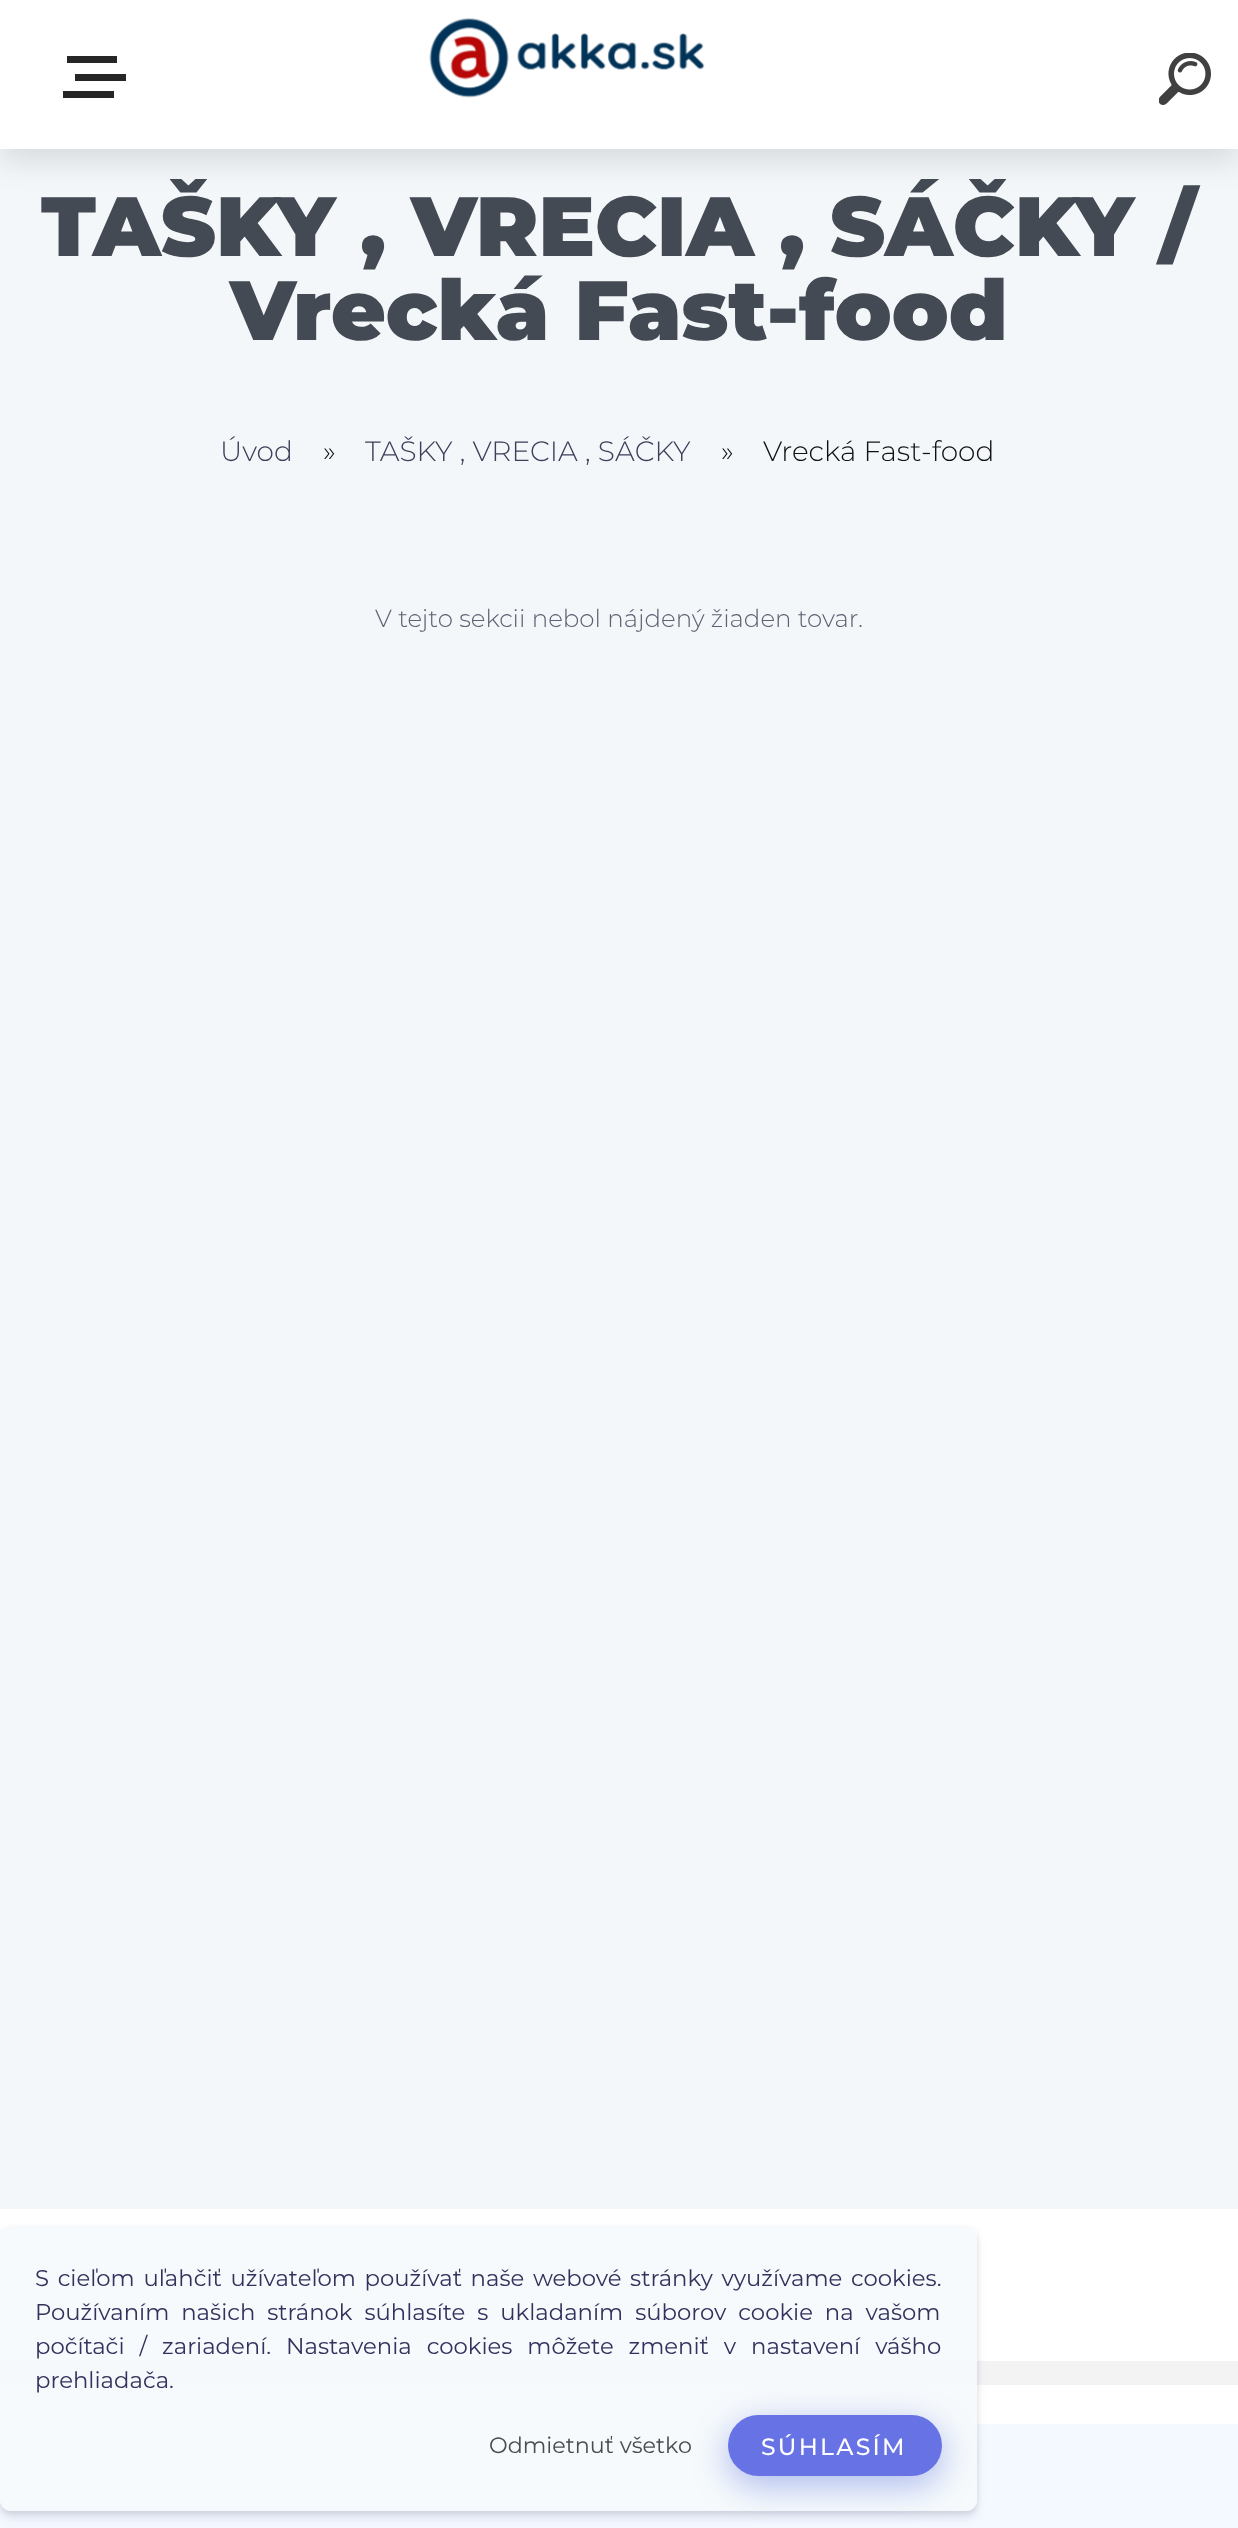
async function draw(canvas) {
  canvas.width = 1238;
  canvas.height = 2528;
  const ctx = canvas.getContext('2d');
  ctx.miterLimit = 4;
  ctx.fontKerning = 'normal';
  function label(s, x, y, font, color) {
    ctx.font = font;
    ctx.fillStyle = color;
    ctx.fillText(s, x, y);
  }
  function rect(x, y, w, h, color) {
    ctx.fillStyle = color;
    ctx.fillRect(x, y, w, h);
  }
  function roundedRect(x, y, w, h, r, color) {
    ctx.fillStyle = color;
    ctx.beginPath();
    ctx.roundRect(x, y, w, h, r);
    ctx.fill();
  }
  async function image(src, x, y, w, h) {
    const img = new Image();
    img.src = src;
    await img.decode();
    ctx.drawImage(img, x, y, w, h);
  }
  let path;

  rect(0, 0, 1238, 2528, '#fff');
  rect(0, 149, 1238, 2060, '#f4f7f9');
  ctx.fillStyle = '#0000001a';
  ctx.filter = 'blur(14px)';
  ctx.beginPath();
  ctx.rect(0, 14, 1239, 149);
  ctx.fill();
  ctx.filter = 'none';
  rect(0, 0, 1238, 149, '#fff');
  rect(67, 56, 50, 7, '#262626');
  rect(75, 74, 51, 7, '#262626');
  rect(63, 91, 51, 7, '#262626');
  await image('assets/img1.png', 429, 18, 276, 80);
  await image('assets/img2.png', 1159, 53, 52, 52);
  label('TAŠKY , VRECIA , SÁČKY /', 41, 256, '900 84px Montserrat', '#434a54');
  label('Vrecká Fast-food', 230, 340, '900 84px Montserrat', '#434a54');
  label('Úvod', 220, 461, '300 28px Montserrat', '#3f3d59');
  label('»', 323, 461, '300 28px Montserrat', '#101010');
  label('TAŠKY , VRECIA , SÁČKY', 365, 461, '300 28px Montserrat', '#3f3d59');
  label('»', 721, 461, '300 28px Montserrat', '#101010');
  label('Vrecká Fast-food', 763, 461, '300 28px Montserrat', '#101010');
  label('V tejto sekcii nebol nájdený žiaden tovar.', 375, 627, '300 24.5px Montserrat', '#605f73');
  rect(0, 2361, 1238, 24, '#f3f3f4');
  rect(0, 2424, 1238, 104, '#f4f8ff');
  ctx.save();
  path = new Path2D('M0 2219H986V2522H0ZM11 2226H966C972 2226 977 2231 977 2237V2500C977 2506 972 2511 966 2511H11C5 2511 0 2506 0 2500V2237C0 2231 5 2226 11 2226Z');
  ctx.clip(path, 'evenodd');
  ctx.fillStyle = '#00000014';
  ctx.filter = 'blur(2.5px)';
  ctx.beginPath();
  ctx.roundRect(0, 2228, 977, 285, 11);
  ctx.fill();
  ctx.filter = 'none';
  ctx.restore();
  ctx.save();
  path = new Path2D('M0 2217H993V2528H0ZM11 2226H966C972 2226 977 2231 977 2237V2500C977 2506 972 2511 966 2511H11C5 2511 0 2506 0 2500V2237C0 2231 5 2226 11 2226Z');
  ctx.clip(path, 'evenodd');
  ctx.fillStyle = '#32325d1c';
  ctx.filter = 'blur(5px)';
  ctx.beginPath();
  ctx.roundRect(0, 2233, 977, 285, 11);
  ctx.fill();
  ctx.filter = 'none';
  ctx.restore();
  roundedRect(0, 2226, 977, 285, 11, '#f6f9fce6');
  ctx.wordSpacing = '2.75px';
  label('S cieľom uľahčiť užívateľom používať naše webové stránky využívame cookies.', 35, 2286, '22.75px Montserrat', '#32325d');
  ctx.wordSpacing = '6px';
  label('Používaním našich stránok súhlasíte s ukladaním súborov cookie na vašom', 35, 2320, '22.75px Montserrat', '#32325d');
  ctx.wordSpacing = '9px';
  label('počítači / zariadení. Nastavenia cookies môžete zmeniť v nastavení vášho', 35, 2354, '22.75px Montserrat', '#32325d');
  ctx.wordSpacing = '0px';
  label('prehliadača.', 35, 2388, '22.75px Montserrat', '#32325d');
  ctx.fillStyle = '#3a54d666';
  ctx.filter = 'blur(17.5px)';
  ctx.beginPath();
  ctx.roundRect(728, 2424, 214, 61, 30.5);
  ctx.fill();
  ctx.filter = 'none';
  label('Odmietnuť všetko', 489, 2453, '22.25px Montserrat', '#4a4b4c');
  roundedRect(728, 2415, 214, 61, 30.5, '#6772e5');
  ctx.letterSpacing = '2.25px';
  label('SÚHLASÍM', 761, 2455, '500 23.5px Montserrat', '#fff');
}

draw(document.querySelector('canvas'));
